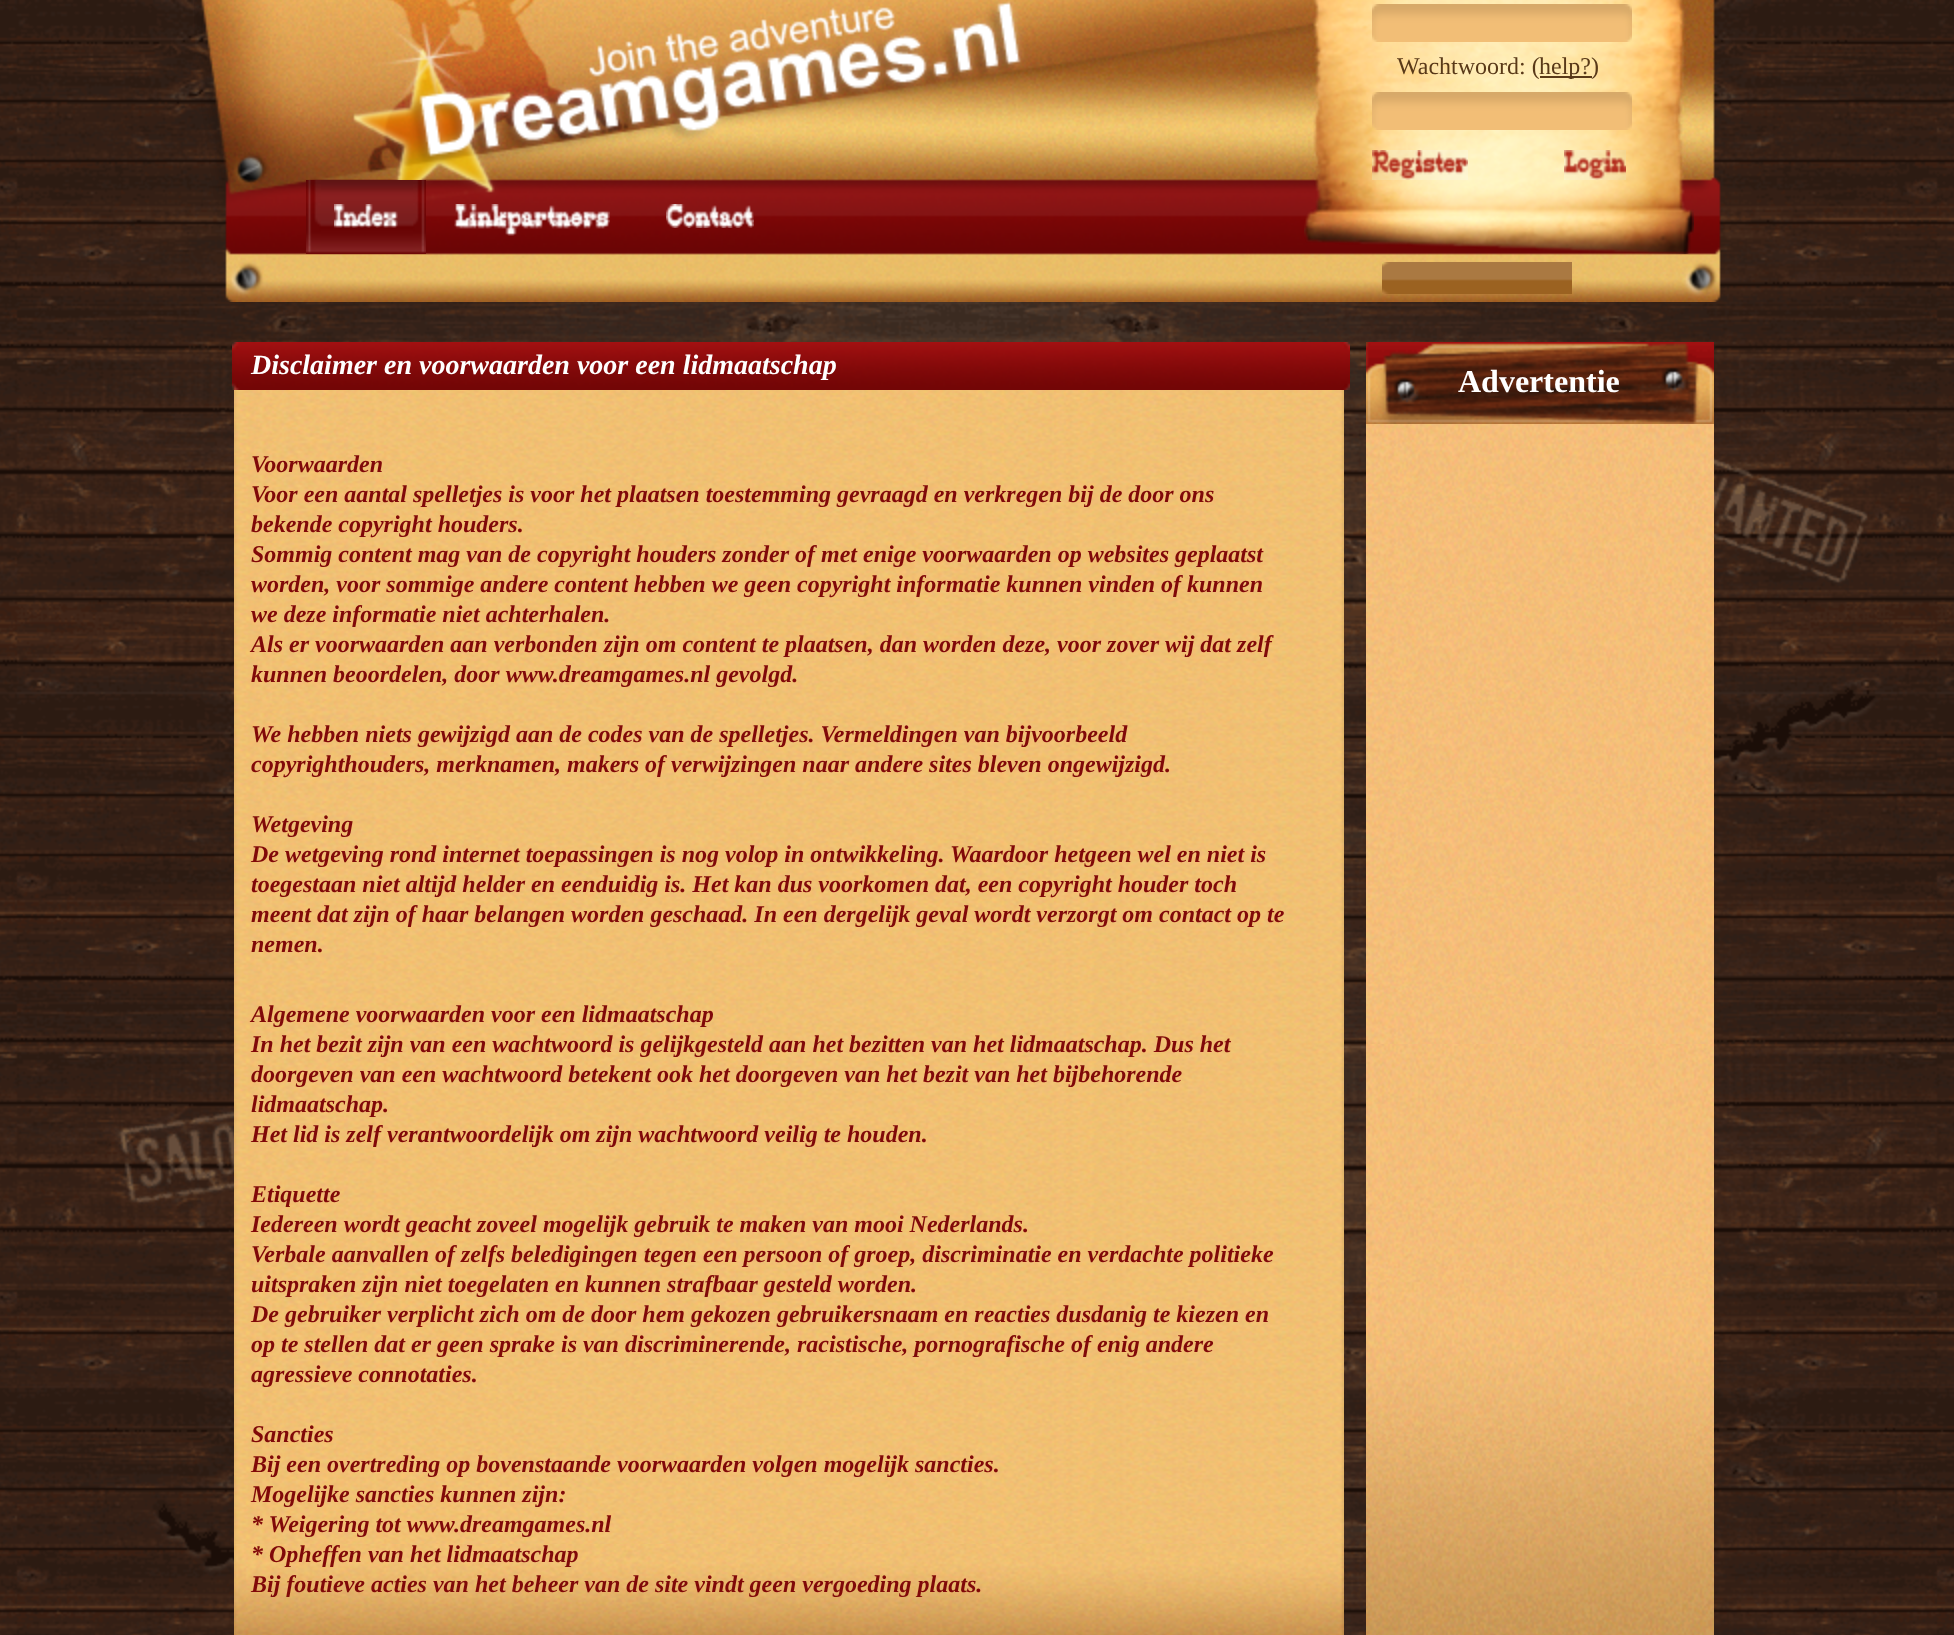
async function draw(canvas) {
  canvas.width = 1954;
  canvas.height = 1635;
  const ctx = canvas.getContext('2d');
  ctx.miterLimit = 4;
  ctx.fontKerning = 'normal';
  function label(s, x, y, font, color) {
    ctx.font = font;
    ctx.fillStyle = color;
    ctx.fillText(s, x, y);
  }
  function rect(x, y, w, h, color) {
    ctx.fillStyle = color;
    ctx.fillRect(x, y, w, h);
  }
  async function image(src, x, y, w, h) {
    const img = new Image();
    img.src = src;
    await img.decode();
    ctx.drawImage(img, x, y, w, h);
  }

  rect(0, 0, 1954, 1635, '#fff');
  await image('assets/img1.png', 0, 0, 1954, 1635);
  await image('assets/img2.png', 194, 0, 1527, 302);
  await image('assets/img3.png', 1304, 0, 390, 254);
  await image('assets/img4.png', 1372, 4, 260, 38);
  label('Wachtwoord: (', 1397, 74, '24px Liberation Serif', '#593918');
  rect(1540, 76, 52, 2, '#593918');
  label('help?)', 1539, 74, '24px Liberation Serif', '#593918');
  await image('assets/img5.png', 1372, 92, 260, 38);
  await image('assets/img6.png', 1372, 150, 96, 30);
  await image('assets/img7.png', 1564, 150, 62, 30);
  await image('assets/img8.png', 306, 180, 120, 74);
  await image('assets/img9.png', 306, 180, 15, 73);
  await image('assets/img10.png', 413, 180, 13, 73);
  await image('assets/img11.png', 334, 204, 64, 24);
  await image('assets/img12.png', 454, 204, 156, 32);
  await image('assets/img13.png', 666, 204, 88, 24);
  await image('assets/img14.png', 1382, 262, 190, 32);
  await image('assets/img15.png', 234, 390, 1110, 1154);
  await image('assets/img16.png', 234, 1544, 1110, 91);
  await image('assets/img17.png', 232, 342, 1118, 48);
  label('Disclaimer en voorwaarden voor een lidmaatschap', 251, 374, 'italic bold 28px Liberation Serif', '#fff');
  label('Voorwaarden', 251, 472, 'italic bold 24px Liberation Serif', '#800909');
  label('Voor een aantal spelletjes is voor het plaatsen toestemming gevraagd en verkregen bij de door ons', 251, 502, 'italic bold 24px Liberation Serif', '#800909');
  label('bekende copyright houders.', 251, 532, 'italic bold 24px Liberation Serif', '#800909');
  label('Sommig content mag van de copyright houders zonder of met enige voorwaarden op websites geplaatst', 251, 562, 'italic bold 24px Liberation Serif', '#800909');
  label('worden, voor sommige andere content hebben we geen copyright informatie kunnen vinden of kunnen', 251, 592, 'italic bold 24px Liberation Serif', '#800909');
  label('we deze informatie niet achterhalen.', 251, 622, 'italic bold 24px Liberation Serif', '#800909');
  label('Als er voorwaarden aan verbonden zijn om content te plaatsen, dan worden deze, voor zover wij dat zelf', 251, 652, 'italic bold 24px Liberation Serif', '#800909');
  label('kunnen beoordelen, door www.dreamgames.nl gevolgd.', 251, 682, 'italic bold 24px Liberation Serif', '#800909');
  label('We hebben niets gewijzigd aan de codes van de spelletjes. Vermeldingen van bijvoorbeeld', 251, 742, 'italic bold 24px Liberation Serif', '#800909');
  label('copyrighthouders, merknamen, makers of verwijzingen naar andere sites bleven ongewijzigd.', 251, 772, 'italic bold 24px Liberation Serif', '#800909');
  label('Wetgeving', 251, 832, 'italic bold 24px Liberation Serif', '#800909');
  label('De wetgeving rond internet toepassingen is nog volop in ontwikkeling. Waardoor hetgeen wel en niet is', 251, 862, 'italic bold 24px Liberation Serif', '#800909');
  label('toegestaan niet altijd helder en eenduidig is. Het kan dus voorkomen dat, een copyright houder toch', 251, 892, 'italic bold 24px Liberation Serif', '#800909');
  label('meent dat zijn of haar belangen worden geschaad. In een dergelijk geval wordt verzorgt om contact op te', 251, 922, 'italic bold 24px Liberation Serif', '#800909');
  label('nemen.', 251, 952, 'italic bold 24px Liberation Serif', '#800909');
  label('Algemene voorwaarden voor een lidmaatschap', 251, 1022, 'italic bold 24px Liberation Serif', '#800909');
  label('In het bezit zijn van een wachtwoord is gelijkgesteld aan het bezitten van het lidmaatschap. Dus het', 251, 1052, 'italic bold 24px Liberation Serif', '#800909');
  label('doorgeven van een wachtwoord betekent ook het doorgeven van het bezit van het bijbehorende', 251, 1082, 'italic bold 24px Liberation Serif', '#800909');
  label('lidmaatschap.', 251, 1112, 'italic bold 24px Liberation Serif', '#800909');
  label('Het lid is zelf verantwoordelijk om zijn wachtwoord veilig te houden.', 251, 1142, 'italic bold 24px Liberation Serif', '#800909');
  label('Etiquette', 251, 1202, 'italic bold 24px Liberation Serif', '#800909');
  label('Iedereen wordt geacht zoveel mogelijk gebruik te maken van mooi Nederlands.', 251, 1232, 'italic bold 24px Liberation Serif', '#800909');
  label('Verbale aanvallen of zelfs beledigingen tegen een persoon of groep, discriminatie en verdachte politieke', 251, 1262, 'italic bold 24px Liberation Serif', '#800909');
  label('uitspraken zijn niet toegelaten en kunnen strafbaar gesteld worden.', 251, 1292, 'italic bold 24px Liberation Serif', '#800909');
  label('De gebruiker verplicht zich om de door hem gekozen gebruikersnaam en reacties dusdanig te kiezen en', 251, 1322, 'italic bold 24px Liberation Serif', '#800909');
  label('op te stellen dat er geen sprake is van discriminerende, racistische, pornografische of enig andere', 251, 1352, 'italic bold 24px Liberation Serif', '#800909');
  label('agressieve connotaties.', 251, 1382, 'italic bold 24px Liberation Serif', '#800909');
  label('Sancties', 251, 1442, 'italic bold 24px Liberation Serif', '#800909');
  label('Bij een overtreding op bovenstaande voorwaarden volgen mogelijk sancties.', 251, 1472, 'italic bold 24px Liberation Serif', '#800909');
  label('Mogelijke sancties kunnen zijn:', 251, 1502, 'italic bold 24px Liberation Serif', '#800909');
  label('* Weigering tot www.dreamgames.nl', 251, 1532, 'italic bold 24px Liberation Serif', '#800909');
  label('* Opheffen van het lidmaatschap', 251, 1562, 'italic bold 24px Liberation Serif', '#800909');
  label('Bij foutieve acties van het beheer van de site vindt geen vergoeding plaats.', 251, 1592, 'italic bold 24px Liberation Serif', '#800909');
  await image('assets/img18.png', 1366, 424, 348, 620);
  await image('assets/img19.png', 1366, 1044, 348, 591);
  await image('assets/img20.png', 1366, 342, 348, 82);
  label('Advertentie', 1458, 392, 'bold 32px Liberation Serif', '#fff');
}

draw(document.querySelector('canvas'));
